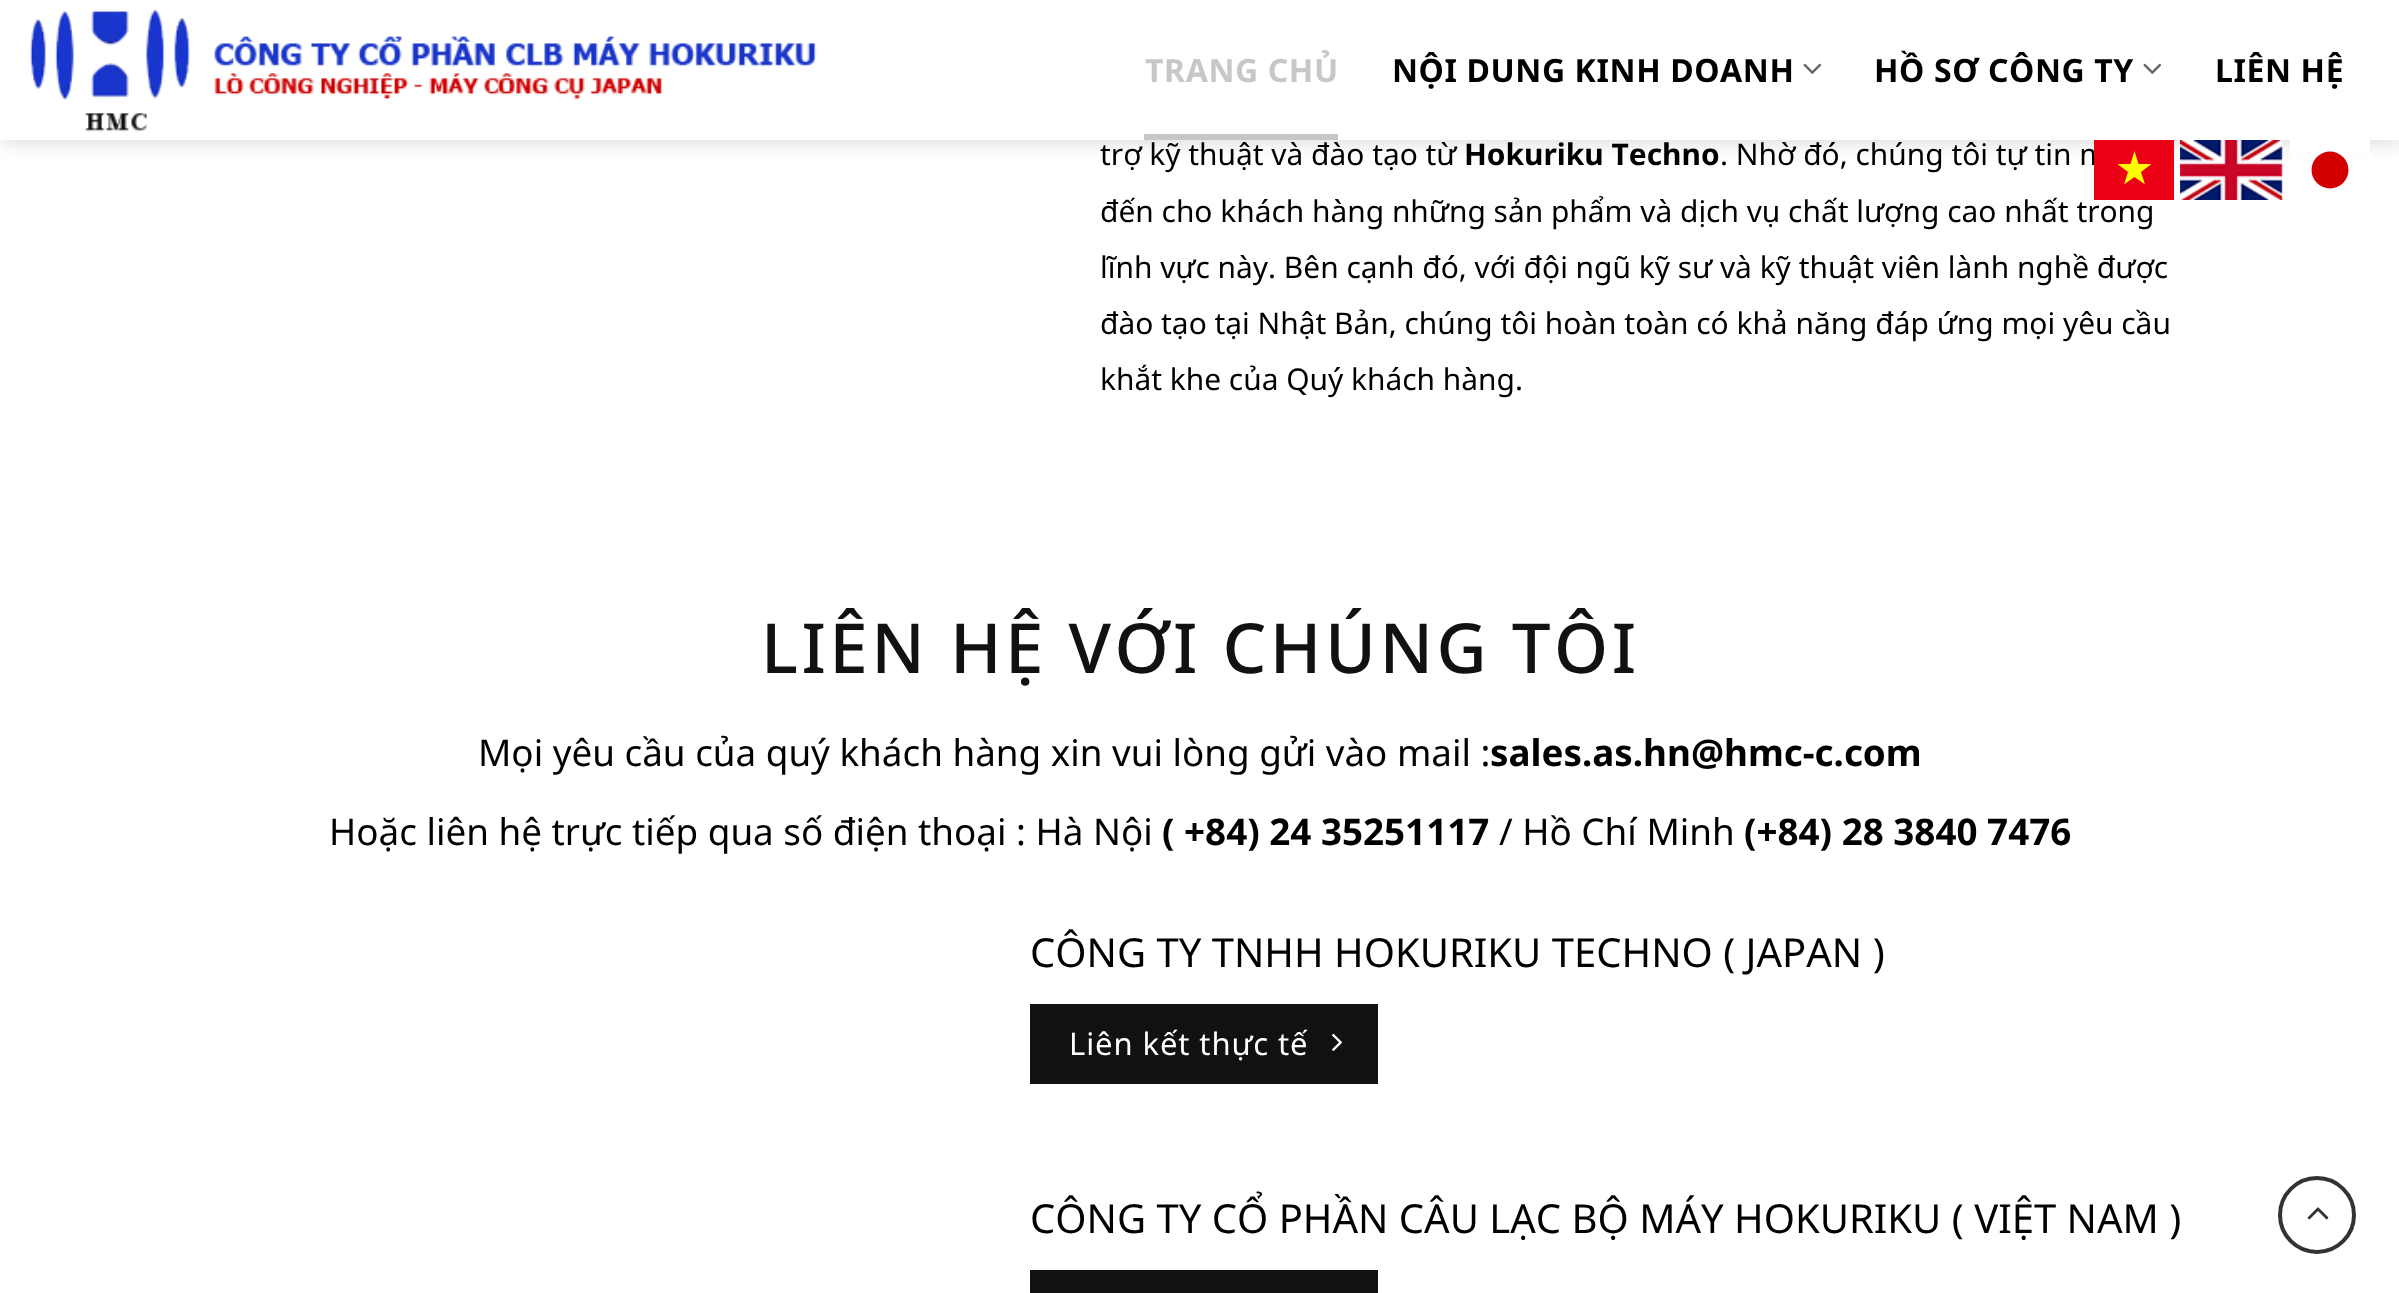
async function draw(canvas) {
  canvas.width = 2399;
  canvas.height = 1293;
  const ctx = canvas.getContext('2d');
  ctx.miterLimit = 4;
  ctx.fontKerning = 'none';
  function label(s, x, y, font, color) {
    ctx.font = font;
    ctx.fillStyle = color;
    ctx.fillText(s, x, y);
  }
  function rect(x, y, w, h, color) {
    ctx.fillStyle = color;
    ctx.fillRect(x, y, w, h);
  }
  async function image(src, x, y, w, h) {
    const img = new Image();
    img.src = src;
    await img.decode();
    ctx.drawImage(img, x, y, w, h);
  }
  let path;

  rect(0, 0, 2399, 1293, '#fff');
  ctx.fillStyle = '#00000026';
  ctx.filter = 'blur(10px)';
  ctx.beginPath();
  ctx.rect(2, 2, 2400, 140);
  ctx.fill();
  ctx.filter = 'none';
  rect(0, 0, 2399, 140, '#fff');
  await image('assets/img1.png', 30, 9, 787, 123);
  ctx.letterSpacing = '0.6px';
  label('TRANG CHỦ', 1145, 82, 'bold 32px Noto Sans', '#c7c7c7');
  rect(1144, 134, 194, 6, '#c7c7c7');
  label('NỘI DUNG KINH DOANH', 1392, 82, 'bold 32px Noto Sans', '#000');
  await image('assets/img2.png', 1803, 63, 19, 11);
  label('HỒ SƠ CÔNG TY', 1874, 82, 'bold 32px Noto Sans', '#000');
  await image('assets/img2.png', 2143, 63, 19, 11);
  label('LIÊN HỆ', 2215, 82, 'bold 32px Noto Sans', '#000');
  ctx.letterSpacing = '0px';
  label('. Nhờ đó, chúng tôi tự tin m', 1720, 165, '29.9px Noto Sans', '#000');
  label('đến cho khách hàng những sản phẩm và dịch vụ chất lượng cao nhất trong', 1100, 222, '29.9px Noto Sans', '#000');
  rect(2094, 140, 80, 60, '#ec0015');
  ctx.fillStyle = '#ff0';
  path = new Path2D('M2145 184.5L2134.5 177L2124 184.5L2128 172L2117.5 164H2130.5L2134.5 151L2138.5 164H2151.5L2141 172Z');
  ctx.fill(path, 'evenodd');
  await image('assets/img3.png', 2180, 140, 103, 60);
  rect(2290, 140, 80, 17, '#fff');
  ctx.fillStyle = '#d30000';
  ctx.beginPath();
  ctx.arc(2330, 170, 18.5, 0, 2 * Math.PI);
  ctx.fill();
  label('trợ kỹ thuật và đào tạo từ', 1100, 165, '29.9px Noto Sans', '#000');
  label('Hokuriku Techno', 1464, 165, 'bold 29.9px Noto Sans', '#000');
  label('lĩnh vực này. Bên cạnh đó, với đội ngũ kỹ sư và kỹ thuật viên lành nghề được', 1100, 278, '29.9px Noto Sans', '#000');
  label('đào tạo tại Nhật Bản, chúng tôi hoàn toàn có khả năng đáp ứng mọi yêu cầu', 1100, 334, '29.9px Noto Sans', '#000');
  label('khắt khe của Quý khách hàng.', 1100, 390, '29.9px Noto Sans', '#000');
  ctx.letterSpacing = '3.5px';
  label('LIÊN HỆ VỚI CHÚNG TÔI', 761, 673, '500 69.1px Noto Sans', '#111');
  ctx.letterSpacing = '0px';
  label('Mọi yêu cầu của quý khách hàng xin vui lòng gửi vào mail :', 478, 766, '36.8px Noto Sans', '#000');
  label('sales.as.hn@hmc-c.com', 1490, 766, 'bold 36.8px Noto Sans', '#000');
  label('Hoặc liên hệ trực tiếp qua số điện thoại : Hà Nội', 329, 845, '36.8px Noto Sans', '#000');
  label('( +84) 24 35251117', 1162, 845, 'bold 36.8px Noto Sans', '#000');
  label('/ Hồ Chí Minh', 1499, 845, '36.8px Noto Sans', '#000');
  label('(+84) 28 3840 7476', 1744, 845, 'bold 36.8px Noto Sans', '#000');
  label('CÔNG TY TNHH HOKURIKU TECHNO ( JAPAN )', 1030, 967, '40px Noto Sans', '#000');
  rect(1030, 1004, 348, 80, '#111');
  ctx.letterSpacing = '0.9px';
  label('Liên kết thực tế', 1069, 1055, '31px Noto Sans', '#fff');
  await image('assets/img4.png', 1332, 1033, 10, 18);
  ctx.letterSpacing = '0px';
  label('CÔNG TY CỔ PHẦN CÂU LẠC BỘ MÁY HOKURIKU ( VIỆT NAM )', 1030, 1233, '40px Noto Sans', '#000');
  rect(1030, 1270, 348, 23, '#111');
  ctx.beginPath();
  ctx.arc(2317, 1215, 37, 0, 2 * Math.PI);
  ctx.strokeStyle = '#333';
  ctx.lineWidth = 4;
  ctx.stroke();
  await image('assets/img5.png', 2307, 1207, 22, 13);
}

draw(document.querySelector('canvas'));
